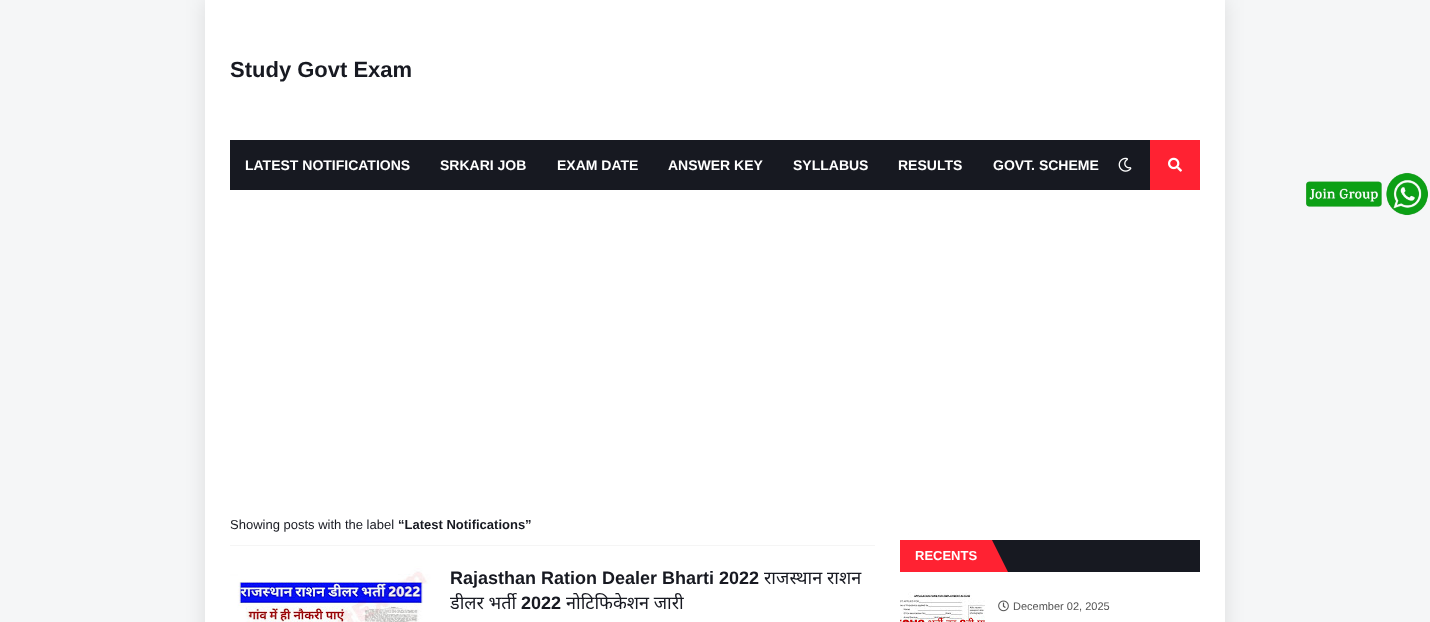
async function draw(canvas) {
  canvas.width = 1430;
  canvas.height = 622;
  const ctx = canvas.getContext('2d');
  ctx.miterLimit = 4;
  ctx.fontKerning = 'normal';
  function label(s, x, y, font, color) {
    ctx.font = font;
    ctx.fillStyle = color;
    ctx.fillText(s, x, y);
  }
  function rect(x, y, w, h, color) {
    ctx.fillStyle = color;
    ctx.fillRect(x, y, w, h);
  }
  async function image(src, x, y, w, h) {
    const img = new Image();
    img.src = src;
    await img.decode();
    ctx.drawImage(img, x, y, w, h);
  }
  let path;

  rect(0, 0, 1430, 622, '#f5f6f7');
  ctx.fillStyle = '#0000001a';
  ctx.filter = 'blur(10px)';
  ctx.beginPath();
  ctx.rect(205, 0, 1020, 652);
  ctx.fill();
  ctx.filter = 'none';
  rect(205, 0, 1020, 622, '#fff');
  label('Study Govt Exam', 230, 77, 'bold 22px Liberation Sans', '#171921');
  rect(230, 140, 920, 50, '#171921');
  label('LATEST NOTIFICATIONS', 245, 170, 'bold 14px Liberation Sans', '#fff');
  label('SRKARI JOB', 440, 170, 'bold 14px Liberation Sans', '#fff');
  label('EXAM DATE', 557, 170, 'bold 14px Liberation Sans', '#fff');
  label('ANSWER KEY', 668, 170, 'bold 14px Liberation Sans', '#fff');
  label('SYLLABUS', 793, 170, 'bold 14px Liberation Sans', '#fff');
  label('RESULTS', 898, 170, 'bold 14px Liberation Sans', '#fff');
  label('GOVT. SCHEME', 993, 170, 'bold 14px Liberation Sans', '#fff');
  await image('assets/img1.png', 1118, 157, 14, 15);
  rect(1150, 140, 50, 50, '#ff2232');
  await image('assets/img2.png', 1168, 157, 14, 15);
  rect(230, 545, 645, 1, '#f5f5f5');
  label('Showing posts with the label', 230, 529, '13px Liberation Sans', '#171921');
  label('“Latest Notifications”', 398, 529, 'bold 13px Liberation Sans', '#171921');
  await image('assets/img3.png', 230, 566, 202, 56);
  label('Rajasthan Ration Dealer Bharti 2022', 450, 584, 'bold 18px Liberation Sans', '#171921');
  label('राजस्थान', 764, 584, '18px Noto Sans', '#171921');
  label('राशन', 827, 584, '18px Noto Sans', '#171921');
  ctx.save();
  ctx.beginPath();
  ctx.rect(450, 566, 425, 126);
  ctx.clip();
  label('डीलर भर्ती', 450, 609, '18px Noto Sans', '#171921');
  ctx.restore();
  label('2022', 521, 609, 'bold 18px Liberation Sans', '#171921');
  label('नोटिफिकेशन जारी', 566, 609, '18px Noto Sans', '#171921');
  await image('assets/img4.png', 1306, 172, 122, 44);
  rect(992, 540, 208, 32, '#171921');
  rect(900, 540, 92, 32, '#ff2232');
  label('RECENTS', 915, 560, 'bold 13px Liberation Sans', '#fff');
  ctx.fillStyle = '#ff2232';
  path = new Path2D('M992 572V540L1008 572Z');
  ctx.fill(path);
  await image('assets/img5.png', 900, 592, 85, 30);
  await image('assets/img6.png', 998, 600, 11, 12);
  label('December 02, 2025', 1013, 610, '11px Liberation Sans', '#555');
}

draw(document.querySelector('canvas'));
